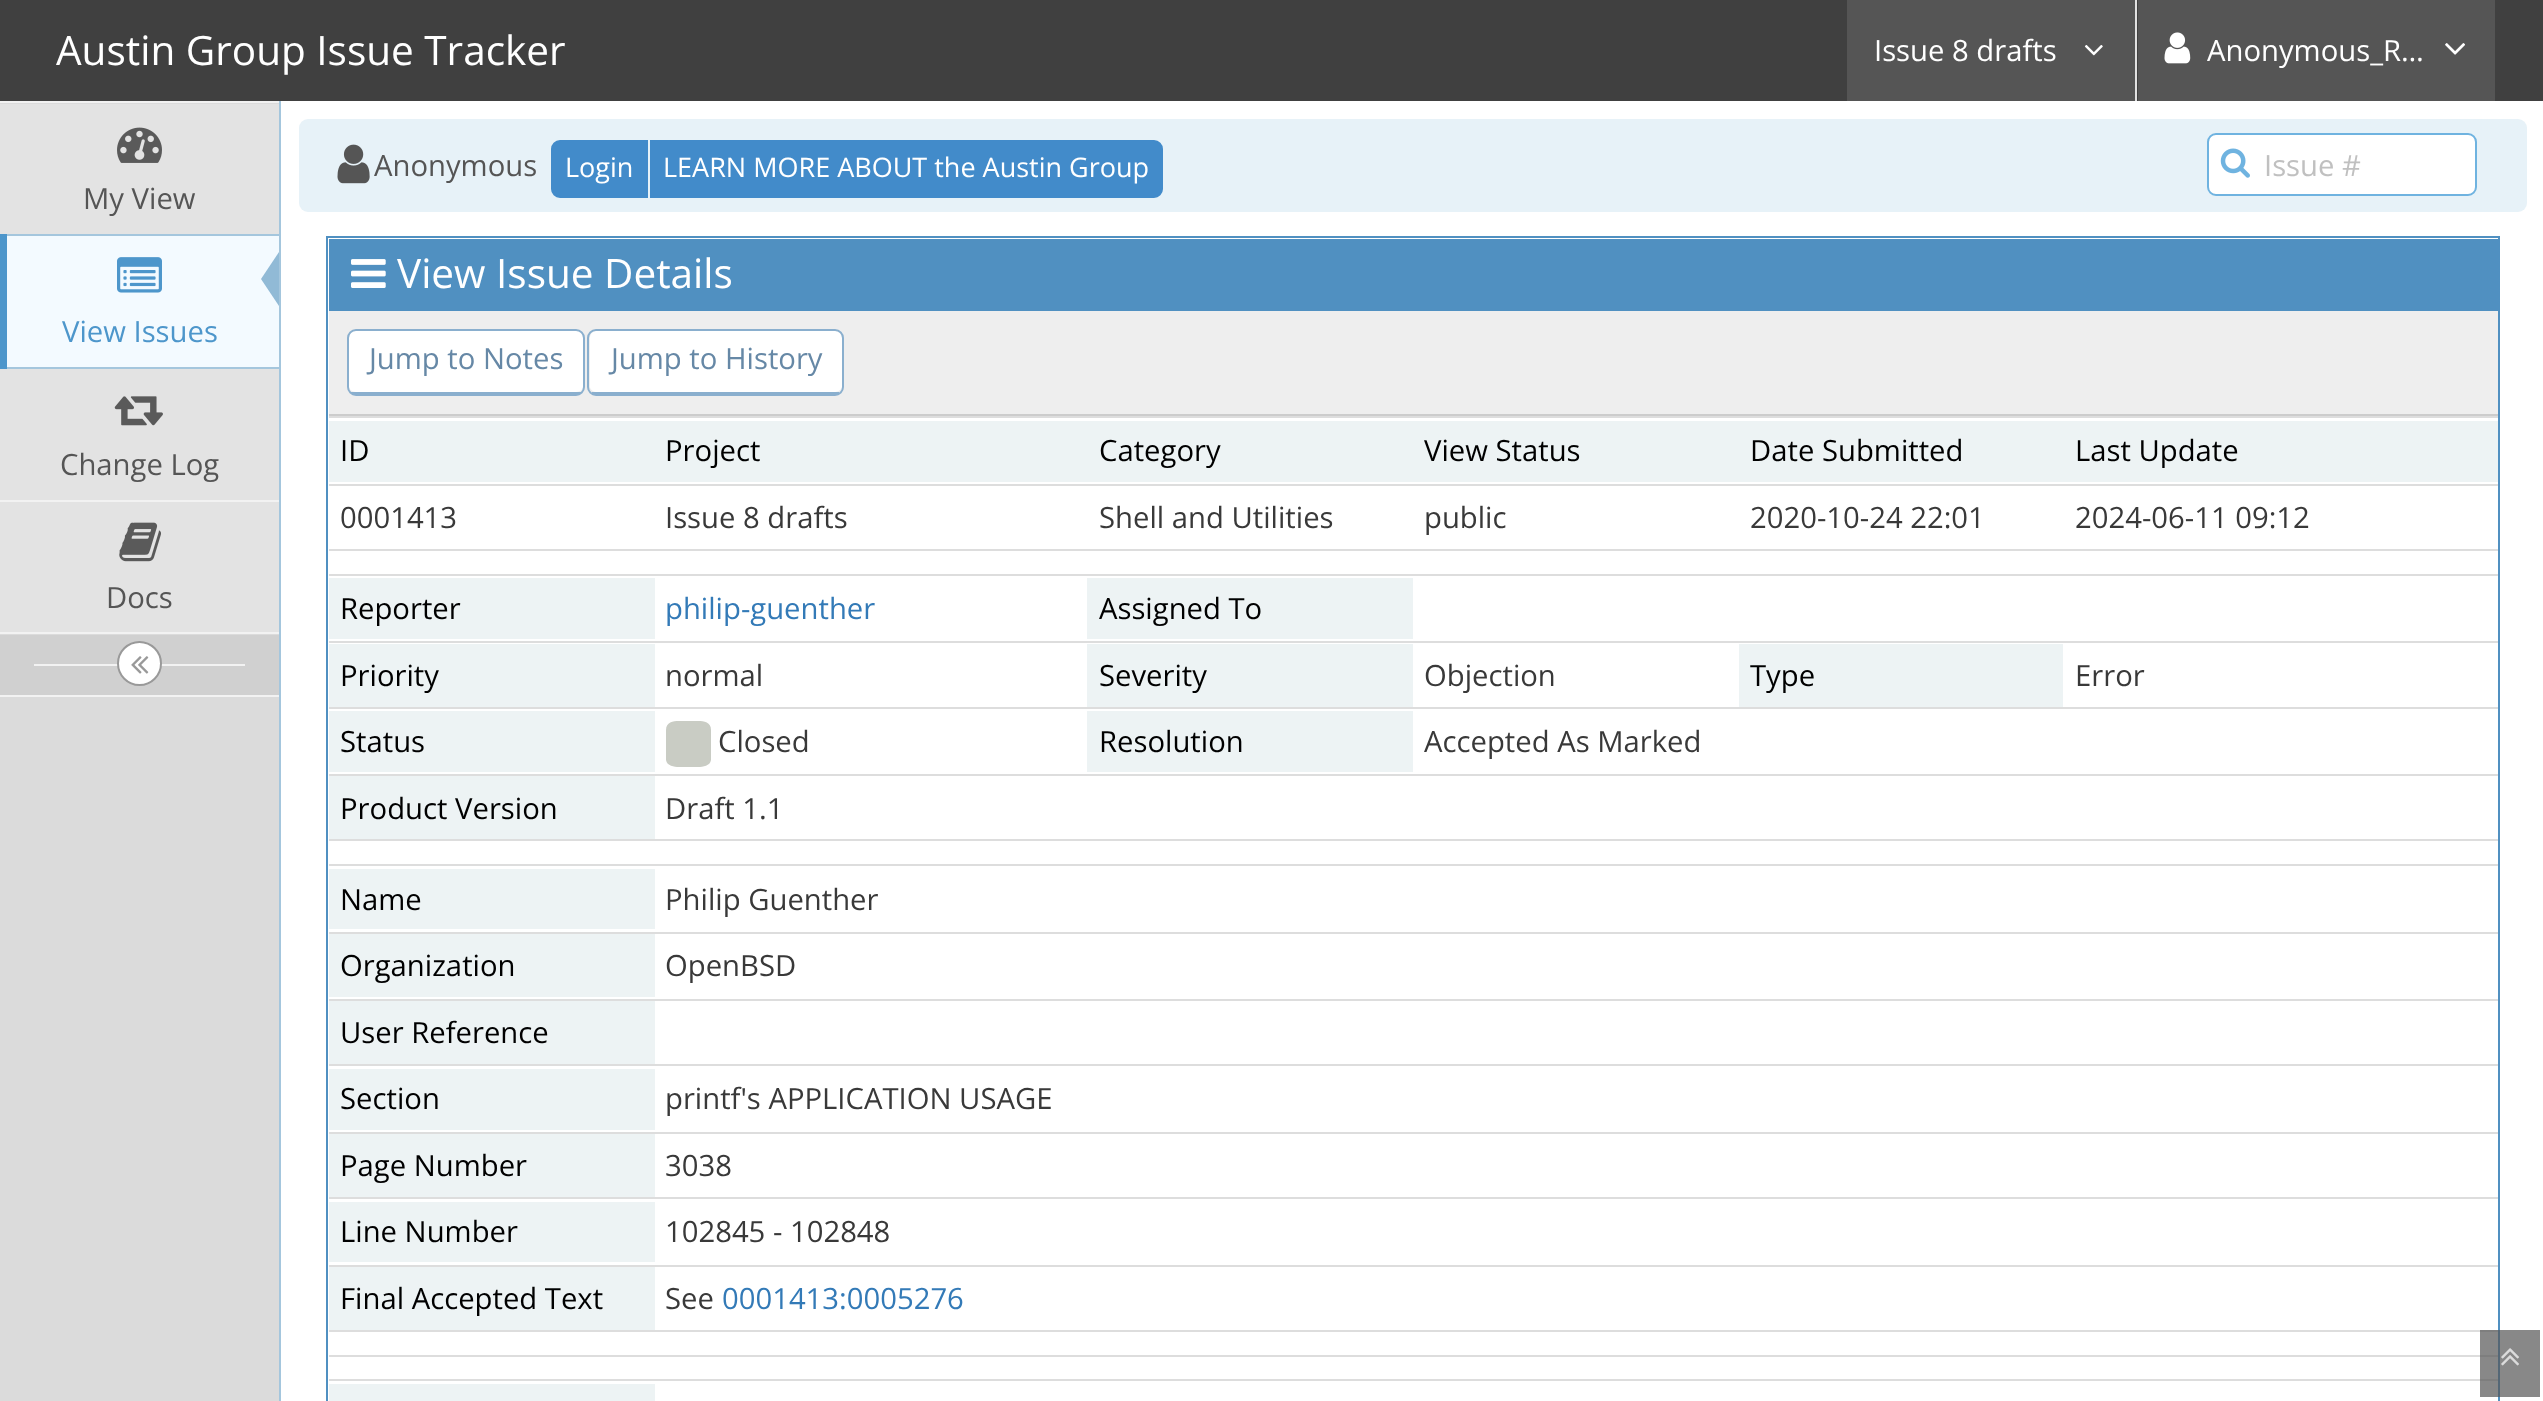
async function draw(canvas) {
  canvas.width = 2543;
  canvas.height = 1401;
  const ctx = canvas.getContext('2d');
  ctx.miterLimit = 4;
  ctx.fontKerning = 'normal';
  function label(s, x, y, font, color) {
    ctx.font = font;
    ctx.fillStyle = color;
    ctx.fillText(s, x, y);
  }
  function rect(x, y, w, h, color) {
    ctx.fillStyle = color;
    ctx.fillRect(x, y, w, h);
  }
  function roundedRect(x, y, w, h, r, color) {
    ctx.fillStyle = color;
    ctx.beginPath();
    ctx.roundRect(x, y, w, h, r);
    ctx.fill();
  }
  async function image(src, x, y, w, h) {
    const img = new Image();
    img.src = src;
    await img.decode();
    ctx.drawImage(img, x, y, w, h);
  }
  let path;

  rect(0, 0, 2543, 1401, '#fff');
  rect(0, 0, 2543, 101, '#404040');
  label('Austin Group Issue Tracker', 56, 65, '40.5px Open Sans', '#fff');
  rect(1847, 0, 288, 101, '#555');
  label('Issue 8 drafts', 1874, 61, '29.25px Open Sans', '#fff');
  await image('assets/img1.png', 2084, 45, 19, 11);
  rect(2135, 0, 2, 101, '#e1e1e1');
  rect(2138, 0, 357, 101, '#555');
  await image('assets/img2.png', 2164, 32, 27, 32);
  label('Anonymous_R…', 2207, 61, '29.25px Open Sans', '#fff');
  await image('assets/img3.png', 2445, 43, 20, 12);
  rect(0, 103, 279, 1298, '#dbdbdb');
  rect(279, 101, 2, 1300, '#a4c6dd');
  rect(0, 101, 279, 2, '#f2f2f2');
  rect(0, 104, 279, 130, '#e3e3e3');
  await image('assets/img4.png', 117, 127, 45, 36);
  label('My View', 83, 209, '29.25px Open Sans', '#555');
  rect(0, 234, 279, 2, '#a4c6dd');
  rect(0, 367, 279, 2, '#a4c6dd');
  rect(0, 234, 7, 135, '#4d96cb');
  rect(7, 236, 272, 131, '#f3faff');
  await image('assets/img5.png', 117, 257, 45, 36);
  ctx.fillStyle = '#91bad6';
  path = new Path2D('M279 252V306L261 279Z');
  ctx.fill(path);
  label('View Issues', 62, 342, '29.25px Open Sans', '#4d96cb');
  rect(0, 369, 279, 131, '#e3e3e3');
  await image('assets/img6.png', 114, 396, 49, 30);
  label('Change Log', 60, 475, '29.25px Open Sans', '#555');
  rect(0, 500, 279, 2, '#f2f2f2');
  rect(0, 632, 279, 2, '#f2f2f2');
  rect(0, 502, 279, 130, '#e3e3e3');
  await image('assets/img7.png', 119, 522, 42, 40);
  label('Docs', 106, 608, '29.25px Open Sans', '#555');
  rect(0, 635, 279, 60, '#d0d0d0');
  rect(0, 695, 279, 2, '#f2f2f2');
  rect(34, 664, 211, 2, '#f2f2f2');
  ctx.fillStyle = '#fff';
  ctx.beginPath();
  ctx.arc(139.5, 663.5, 21.5, 0, 2 * Math.PI);
  ctx.fill();
  ctx.strokeStyle = '#999';
  ctx.lineWidth = 2;
  ctx.stroke();
  await image('assets/img8.png', 131, 656, 18, 18);
  roundedRect(299, 119, 2228, 93, 9, '#e7f2f8');
  await image('assets/img9.png', 337, 144, 33, 40);
  label('Anonymous', 374, 176, '29.25px Open Sans', '#555');
  ctx.fillStyle = '#428bca';
  ctx.beginPath();
  ctx.roundRect(552, 141, 95, 56, [8, 0, 0, 8]);
  ctx.fill();
  ctx.strokeStyle = '#428bca';
  ctx.stroke();
  label('Login', 565, 177, '27px Open Sans', '#fff');
  ctx.fillStyle = '#428bca';
  ctx.beginPath();
  ctx.roundRect(651, 141, 511, 56, [0, 8, 8, 0]);
  ctx.fill();
  ctx.stroke();
  label('LEARN MORE ABOUT the Austin Group', 663, 177, '27px Open Sans', '#fff');
  ctx.beginPath();
  ctx.roundRect(2208, 134, 268, 61, 8);
  ctx.fill();
  ctx.strokeStyle = '#6fb3e0';
  ctx.stroke();
  await image('assets/img10.png', 2220, 148, 30, 30);
  label('Issue #', 2264, 176, '29.25px Open Sans', '#c0c0c0');
  ctx.strokeStyle = '#5090c1';
  ctx.strokeRect(327, 237, 2172, 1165);
  rect(329, 239, 2169, 72, '#5090c1');
  await image('assets/img11.png', 351, 259, 35, 29);
  label('View Issue Details', 397, 288, '40.5px Open Sans', '#fff');
  rect(329, 311, 2169, 103, '#eee');
  rect(329, 414, 2169, 2, '#ccc');
  ctx.fillStyle = '#fff';
  path = new Path2D('M356 331H576C580 331 583 334 583 338V387C583 389 580 392 576 392H356C352 392 349 389 349 387V338C349 334 352 331 356 331Z');
  ctx.fill(path);
  ctx.beginPath();
  ctx.roundRect(348, 330, 236, 65, 8);
  ctx.strokeStyle = '#8aafce';
  ctx.stroke();
  rect(351, 392, 230, 2, '#8aafce');
  label('Jump to Notes', 369, 369, '29.25px Open Sans', '#6688a6');
  ctx.fillStyle = '#fff';
  path = new Path2D('M596 331H835C838 331 842 334 842 338V387C842 389 838 392 835 392H596C593 392 590 389 590 387V338C590 334 593 331 596 331Z');
  ctx.fill(path);
  ctx.beginPath();
  ctx.roundRect(588, 330, 255, 65, 8);
  ctx.stroke();
  rect(592, 392, 247, 2, '#8aafce');
  label('Jump to History', 611, 369, '29.25px Open Sans', '#6688a6');
  rect(329, 421, 2169, 61, '#edf3f4');
  label('ID', 340, 461, '29.25px Open Sans', '#000');
  label('Project', 665, 461, '29.25px Open Sans', '#000');
  label('Category', 1099, 461, '29.25px Open Sans', '#000');
  label('View Status', 1424, 461, '29.25px Open Sans', '#000');
  label('Date Submitted', 1750, 461, '29.25px Open Sans', '#000');
  rect(329, 416, 2169, 2, '#ddd');
  label('Last Update', 2075, 461, '29.25px Open Sans', '#000');
  label('0001413', 340, 528, '29.25px Open Sans', '#393939');
  label('Issue 8 drafts', 665, 528, '29.25px Open Sans', '#393939');
  label('Shell and Utilities', 1099, 528, '29.25px Open Sans', '#393939');
  label('public', 1424, 528, '29.25px Open Sans', '#393939');
  label('2020-10-24 22:01', 1750, 528, '29.25px Open Sans', '#393939');
  rect(329, 484, 2169, 2, '#ddd');
  label('2024-06-11 09:12', 2075, 528, '29.25px Open Sans', '#393939');
  rect(329, 549, 2169, 2, '#ddd');
  rect(329, 574, 2169, 2, '#ddd');
  rect(329, 578, 326, 61, '#edf3f4');
  label('Reporter', 340, 619, '29.25px Open Sans', '#000');
  label('philip-guenther', 665, 619, '29.25px Open Sans', '#337ab7');
  rect(1087, 578, 326, 61, '#edf3f4');
  label('Assigned To', 1099, 619, '29.25px Open Sans', '#000');
  rect(329, 644, 326, 63, '#edf3f4');
  label('Priority', 340, 686, '29.25px Open Sans', '#000');
  label('normal', 665, 686, '29.25px Open Sans', '#393939');
  rect(1087, 644, 326, 63, '#edf3f4');
  label('Severity', 1099, 686, '29.25px Open Sans', '#000');
  label('Objection', 1424, 686, '29.25px Open Sans', '#393939');
  rect(1739, 644, 324, 63, '#edf3f4');
  label('Type', 1750, 686, '29.25px Open Sans', '#000');
  rect(329, 641, 2169, 2, '#ddd');
  label('Error', 2075, 686, '29.25px Open Sans', '#393939');
  rect(329, 707, 2169, 2, '#ddd');
  rect(329, 711, 326, 61, '#edf3f4');
  label('Status', 340, 752, '29.25px Open Sans', '#000');
  ctx.fillStyle = '#c9ccc4';
  path = new Path2D('M711 730V760C710 766 703 767 698 767H679C674 767 667 766 666 760V730C666 722 673 721 679 721H698C704 721 711 722 711 730Z');
  ctx.fill(path);
  label('Closed', 718, 752, '29.25px Open Sans', '#393939');
  rect(1087, 711, 326, 61, '#edf3f4');
  label('Resolution', 1099, 752, '29.25px Open Sans', '#000');
  label('Accepted As Marked', 1424, 752, '29.25px Open Sans', '#393939');
  rect(329, 774, 2169, 2, '#ddd');
  rect(329, 776, 326, 63, '#edf3f4');
  label('Product Version', 340, 819, '29.25px Open Sans', '#000');
  label('Draft 1.1', 665, 819, '29.25px Open Sans', '#393939');
  rect(329, 839, 2169, 2, '#ddd');
  rect(329, 869, 326, 60, '#edf3f4');
  label('Name', 340, 910, '29.25px Open Sans', '#000');
  rect(329, 864, 2169, 2, '#ddd');
  label('Philip Guenther', 665, 910, '29.25px Open Sans', '#393939');
  rect(329, 934, 326, 63, '#edf3f4');
  label('Organization', 340, 976, '29.25px Open Sans', '#000');
  rect(329, 932, 2169, 2, '#ddd');
  label('OpenBSD', 665, 976, '29.25px Open Sans', '#393939');
  rect(329, 999, 2169, 2, '#ddd');
  rect(329, 1001, 326, 63, '#edf3f4');
  label('User Reference', 340, 1043, '29.25px Open Sans', '#000');
  rect(329, 1069, 326, 61, '#edf3f4');
  label('Section', 340, 1109, '29.25px Open Sans', '#000');
  rect(329, 1064, 2169, 2, '#ddd');
  label('printf\'s APPLICATION USAGE', 665, 1109, '29.25px Open Sans', '#393939');
  rect(329, 1134, 326, 63, '#edf3f4');
  label('Page Number', 340, 1176, '29.25px Open Sans', '#000');
  rect(329, 1132, 2169, 2, '#ddd');
  label('3038', 665, 1176, '29.25px Open Sans', '#393939');
  rect(329, 1202, 326, 60, '#edf3f4');
  label('Line Number', 340, 1242, '29.25px Open Sans', '#000');
  rect(329, 1197, 2169, 2, '#ddd');
  label('102845 - 102848', 665, 1242, '29.25px Open Sans', '#393939');
  rect(329, 1267, 326, 63, '#edf3f4');
  label('Final Accepted Text', 340, 1309, '29.25px Open Sans', '#000');
  rect(329, 1265, 2169, 2, '#ddd');
  label('See', 665, 1309, '29.25px Open Sans', '#393939');
  label('0001413:0005276', 722, 1309, '29.25px Open Sans', '#337ab7');
  rect(329, 1330, 2169, 2, '#ddd');
  rect(329, 1355, 2169, 2, '#ddd');
  rect(329, 1379, 2169, 2, '#ddd');
  rect(329, 1384, 326, 17, '#edf3f4');
  rect(2480, 1330, 60, 67, '#555555b3');
  await image('assets/img12.png', 2501, 1348, 18, 18);
}

draw(document.querySelector('canvas'));
